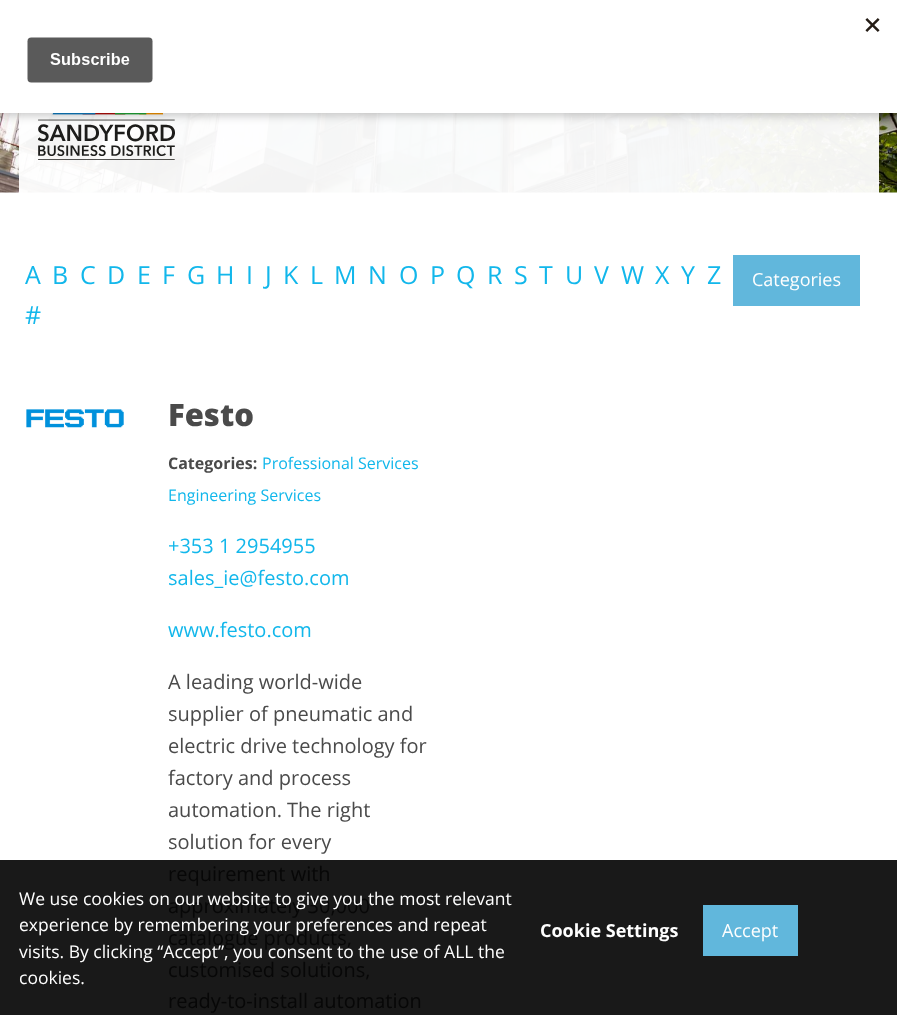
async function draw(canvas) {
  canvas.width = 897;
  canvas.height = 1015;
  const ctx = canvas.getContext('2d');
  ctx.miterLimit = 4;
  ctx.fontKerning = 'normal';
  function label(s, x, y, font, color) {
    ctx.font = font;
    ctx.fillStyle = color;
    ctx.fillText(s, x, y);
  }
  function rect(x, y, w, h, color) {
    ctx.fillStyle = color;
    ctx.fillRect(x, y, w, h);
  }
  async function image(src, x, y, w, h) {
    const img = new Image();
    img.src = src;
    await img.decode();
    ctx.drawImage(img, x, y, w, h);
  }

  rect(0, 0, 897, 1015, '#fff');
  rect(0, 860, 897, 155, '#191919');
  await image('assets/img2.png', 0, 113, 897, 80);
  await image('assets/img3.png', 38, 113, 137, 47);
  ctx.fillStyle = '#00000033';
  ctx.filter = 'blur(4px)';
  ctx.beginPath();
  ctx.rect(0, 4, 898, 112);
  ctx.fill();
  ctx.filter = 'none';
  rect(0, 0, 897, 113, '#fff');
  await image('assets/img1.png', 27, 18, 853, 65);
  label('A', 25, 284, '25px Open Sans', '#12b7eb');
  label('B', 52, 284, '25px Open Sans', '#12b7eb');
  label('C', 80, 284, '25px Open Sans', '#12b7eb');
  label('D', 107, 284, '25px Open Sans', '#12b7eb');
  label('E', 137, 284, '25px Open Sans', '#12b7eb');
  label('F', 162, 284, '25px Open Sans', '#12b7eb');
  label('G', 187, 284, '25px Open Sans', '#12b7eb');
  label('H', 216, 284, '25px Open Sans', '#12b7eb');
  label('I', 246, 284, '25px Open Sans', '#12b7eb');
  label('J', 265, 284, '25px Open Sans', '#12b7eb');
  label('K', 283, 284, '25px Open Sans', '#12b7eb');
  label('L', 310, 284, '25px Open Sans', '#12b7eb');
  label('M', 334, 284, '25px Open Sans', '#12b7eb');
  label('N', 368, 284, '25px Open Sans', '#12b7eb');
  label('O', 399, 284, '25px Open Sans', '#12b7eb');
  label('P', 430, 284, '25px Open Sans', '#12b7eb');
  label('Q', 456, 284, '25px Open Sans', '#12b7eb');
  label('R', 487, 284, '25px Open Sans', '#12b7eb');
  label('S', 514, 284, '25px Open Sans', '#12b7eb');
  label('T', 539, 284, '25px Open Sans', '#12b7eb');
  label('U', 565, 284, '25px Open Sans', '#12b7eb');
  label('V', 594, 284, '25px Open Sans', '#12b7eb');
  label('W', 621, 284, '25px Open Sans', '#12b7eb');
  label('X', 655, 284, '25px Open Sans', '#12b7eb');
  label('Y', 681, 284, '25px Open Sans', '#12b7eb');
  label('Z', 707, 284, '25px Open Sans', '#12b7eb');
  label('#', 25, 324, '25px Open Sans', '#12b7eb');
  rect(733, 255, 127, 51, '#61b7dc');
  label('Categories', 752, 286, '18px Open Sans', '#fefefe');
  await image('assets/img4.png', 26, 409, 98, 19);
  label('Festo', 168, 426, '800 31px Open Sans', '#4a4a4a');
  label('Categories:', 168, 469, 'bold 16px Open Sans', '#4a4a4a');
  label('Professional Services', 262, 469, '16px Open Sans', '#12b7eb');
  label('Engineering Services', 168, 501, '16px Open Sans', '#12b7eb');
  label('+353 1 2954955', 168, 553, '20px Open Sans', '#12b7eb');
  label('sales_ie@festo.com', 168, 585, '20px Open Sans', '#12b7eb');
  label('www.festo.com', 168, 637, '20px Open Sans', '#12b7eb');
  label('A leading world-wide', 168, 689, '20px Open Sans', '#4a4a4a');
  label('supplier of pneumatic and', 168, 721, '20px Open Sans', '#4a4a4a');
  label('electric drive technology for', 168, 753, '20px Open Sans', '#4a4a4a');
  label('factory and process', 168, 785, '20px Open Sans', '#4a4a4a');
  label('automation. The right', 168, 817, '20px Open Sans', '#4a4a4a');
  label('solution for every', 168, 849, '20px Open Sans', '#4a4a4a');
  label('requirement with', 168, 881, '20px Open Sans', '#070707');
  label('approximately 30,000', 168, 913, '20px Open Sans', '#070707');
  label('catalogue products,', 168, 945, '20px Open Sans', '#070707');
  label('customised solutions,', 168, 977, '20px Open Sans', '#070707');
  label('ready-to-install automation', 168, 1008, '20px Open Sans', '#070707');
  label('We use cookies on our website to give you the most relevant', 19, 905, '17.5px Open Sans', '#fefefe');
  label('experience by remembering your preferences and repeat', 19, 931, '17.5px Open Sans', '#fefefe');
  label('visits. By clicking “Accept”, you consent to the use of ALL the', 19, 958, '17.5px Open Sans', '#fefefe');
  label('cookies.', 19, 984, '17.5px Open Sans', '#fefefe');
  label('Cookie Settings', 540, 937, 'bold 18px Open Sans', '#fefefe');
  rect(703, 905, 95, 51, '#61b7dc');
  label('Accept', 722, 937, '18px Open Sans', '#fefefe');
}

draw(document.querySelector('canvas'));
